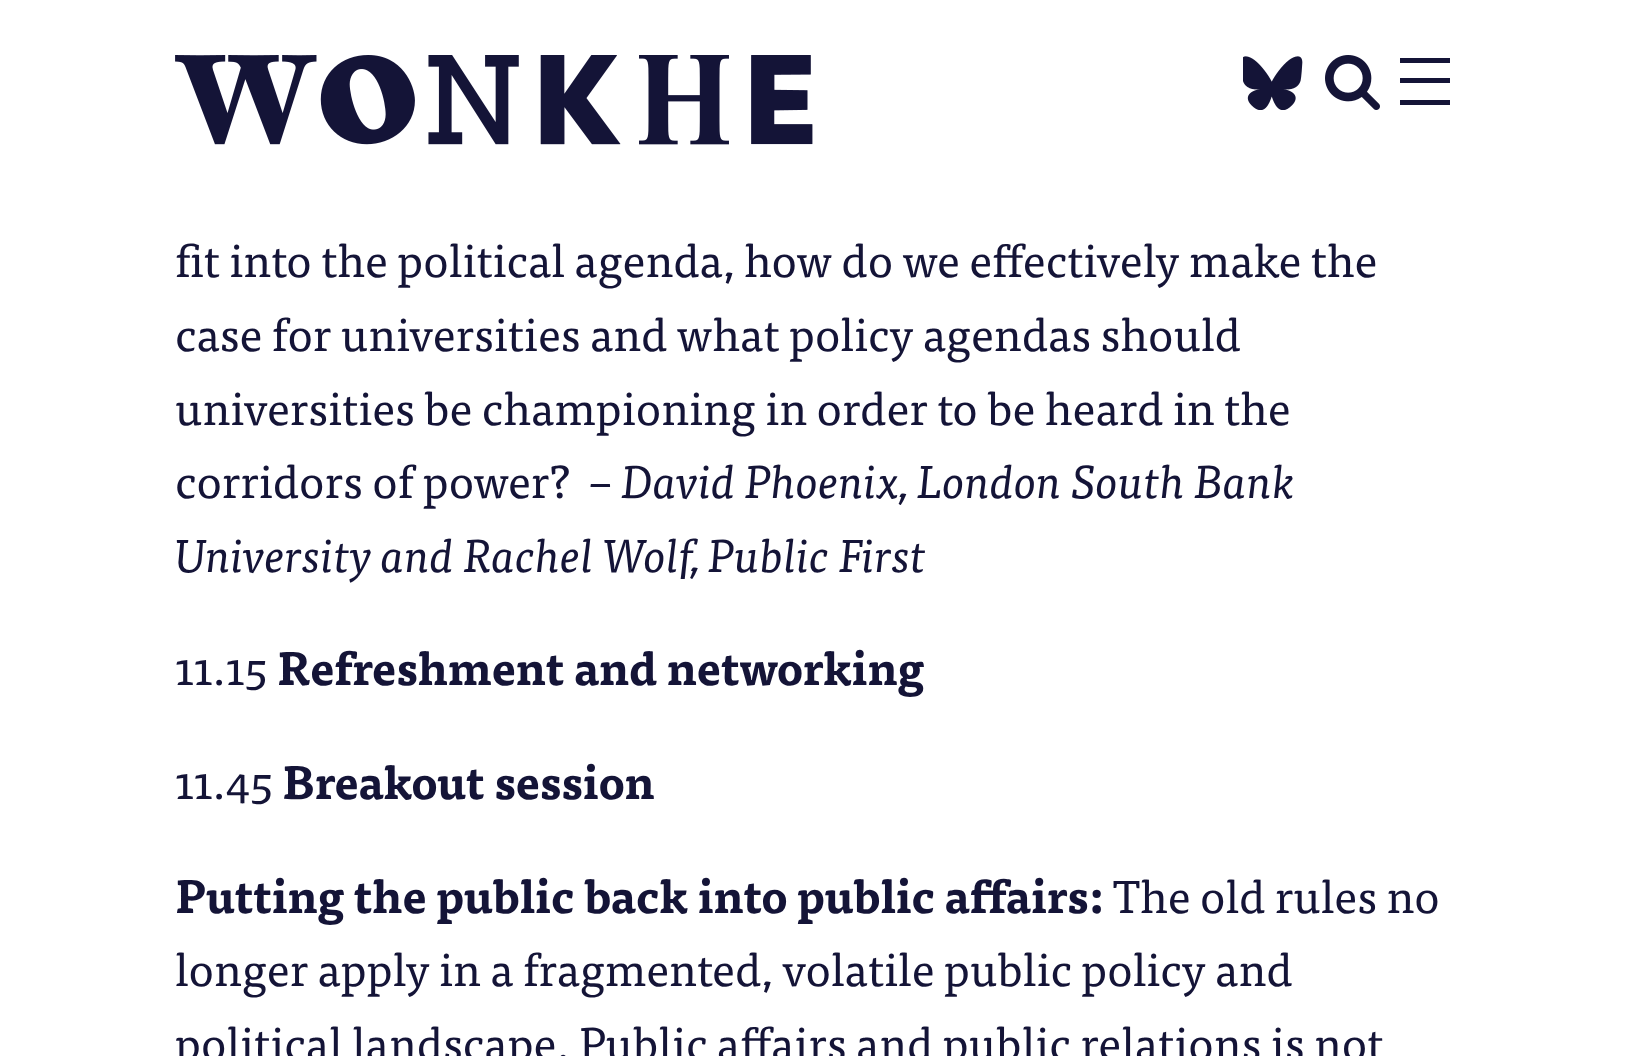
async function draw(canvas) {
  canvas.width = 1625;
  canvas.height = 1056;
  const ctx = canvas.getContext('2d');
  ctx.miterLimit = 4;
  ctx.fontKerning = 'normal';
  function label(s, x, y, font, color) {
    ctx.font = font;
    ctx.fillStyle = color;
    ctx.fillText(s, x, y);
  }
  function rect(x, y, w, h, color) {
    ctx.fillStyle = color;
    ctx.fillRect(x, y, w, h);
  }
  async function image(src, x, y, w, h) {
    const img = new Image();
    img.src = src;
    await img.decode();
    ctx.drawImage(img, x, y, w, h);
  }

  rect(0, 0, 1625, 1056, '#fff');
  await image('assets/img1.png', 175, 55, 638, 90);
  await image('assets/img2.png', 1243, 56, 60, 54);
  await image('assets/img3.png', 1325, 55, 55, 55);
  rect(1400, 58, 50, 5, '#141437');
  rect(1400, 78, 50, 5, '#141437');
  rect(1400, 100, 50, 5, '#141437');
  label('fit into the political agenda, how do we effectively make the', 175, 277, '46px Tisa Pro', '#141437');
  label('case for universities and what policy agendas should', 175, 351, '46px Tisa Pro', '#141437');
  label('universities be championing in order to be heard in the', 175, 425, '46px Tisa Pro', '#141437');
  label('corridors of power?  –', 175, 498, '46px Tisa Pro', '#141437');
  label('David Phoenix, London South Bank', 621, 498, 'italic 46px Tisa Pro', '#141437');
  label('University and Rachel Wolf, Public First', 175, 572, 'italic 46px Tisa Pro', '#141437');
  label('11.15', 175, 685, '46px Tisa Pro', '#141437');
  label('Refreshment and networking', 277, 685, 'bold 46px Tisa Pro', '#141437');
  label('11.45', 175, 799, '46px Tisa Pro', '#141437');
  label('Breakout session', 282, 799, 'bold 46px Tisa Pro', '#141437');
  label('Putting the public back into public affairs:', 175, 913, 'bold 46px Tisa Pro', '#141437');
  label('The old rules no', 1113, 913, '46px Tisa Pro', '#141437');
  label('longer apply in a fragmented, volatile public policy and', 175, 986, '46px Tisa Pro', '#141437');
  label('political landscape. Public affairs and public relations is not', 175, 1060, '46px Tisa Pro', '#141437');
}

draw(document.querySelector('canvas'));
